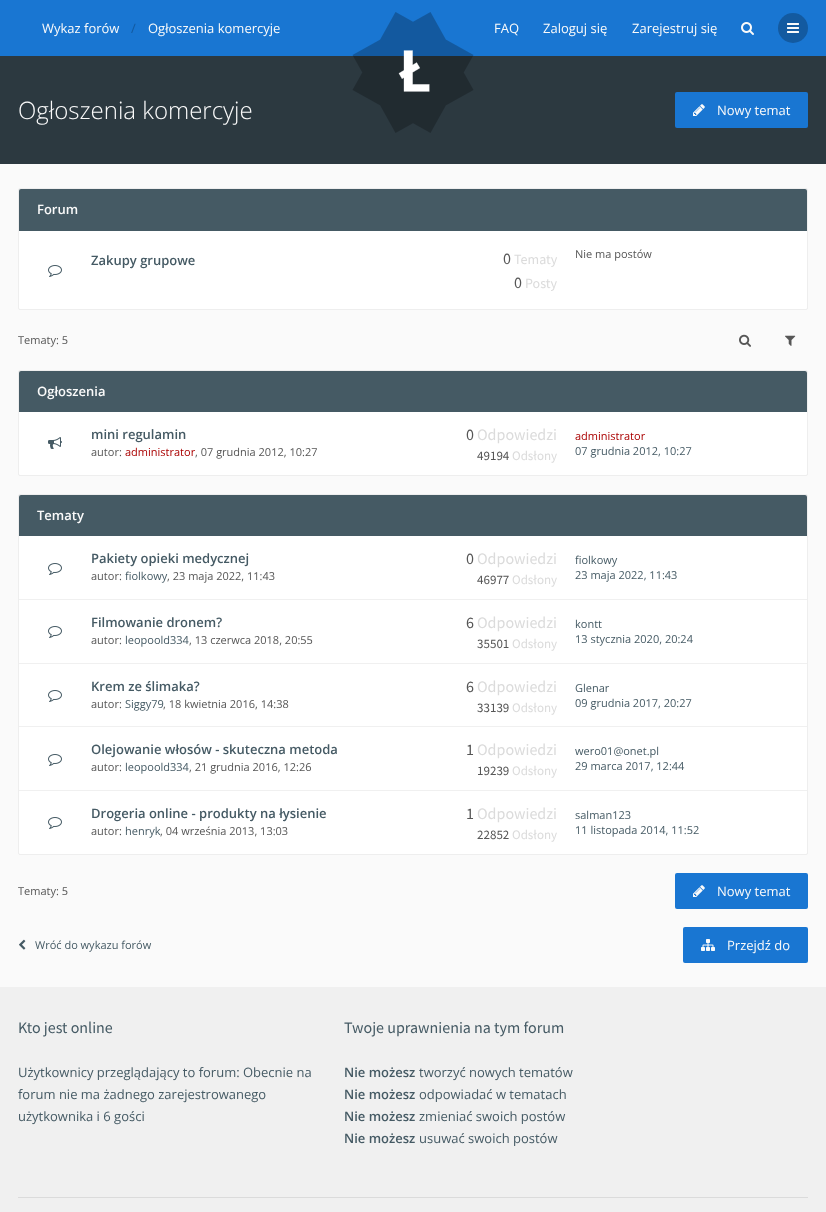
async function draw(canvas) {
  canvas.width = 826;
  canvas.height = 1212;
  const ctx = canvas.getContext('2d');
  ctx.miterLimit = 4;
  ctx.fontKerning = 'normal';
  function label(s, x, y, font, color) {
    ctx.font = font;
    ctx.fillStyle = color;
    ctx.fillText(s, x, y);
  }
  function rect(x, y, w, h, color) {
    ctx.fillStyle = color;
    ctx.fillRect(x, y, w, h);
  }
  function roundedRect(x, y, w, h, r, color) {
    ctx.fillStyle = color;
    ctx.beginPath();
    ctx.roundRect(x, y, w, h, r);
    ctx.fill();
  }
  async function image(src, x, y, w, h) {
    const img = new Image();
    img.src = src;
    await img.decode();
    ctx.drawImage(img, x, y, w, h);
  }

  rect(0, 0, 826, 1212, '#fafafa');
  rect(0, 0, 826, 56, '#1976d2');
  rect(0, 56, 826, 108, '#2c3940');
  await image('assets/img1.png', 352, 12, 122, 121);
  label('Wykaz forów', 42, 33, '13px Open Sans', '#fafafa');
  label('/', 131, 33, '13px Open Sans', '#135aa0');
  label('Ogłoszenia komercyje', 148, 33, '13px Open Sans', '#fafafa');
  label('FAQ', 494, 33, '13px Open Sans', '#fafafa');
  label('Zaloguj się', 543, 33, '13px Open Sans', '#fafafa');
  label('Zarejestruj się', 632, 33, '13px Open Sans', '#fafafa');
  await image('assets/img2.png', 741, 22, 13, 13);
  ctx.fillStyle = '#135aa0';
  ctx.beginPath();
  ctx.arc(793, 28, 15, 0, 2 * Math.PI);
  ctx.fill();
  await image('assets/img3.png', 787, 23, 12, 10);
  label('Ogłoszenia komercyje', 18, 119, '300 24px Open Sans', '#fafafa');
  roundedRect(675, 92, 133, 36, 2, '#1976d2');
  await image('assets/img4.png', 693, 104, 12, 12);
  label('Nowy temat', 717, 115, '13px Open Sans', '#fafafa');
  ctx.beginPath();
  ctx.roundRect(18.5, 188.5, 789, 121, 1.5);
  ctx.strokeStyle = '#eee';
  ctx.stroke();
  ctx.fillStyle = '#455a64';
  ctx.beginPath();
  ctx.roundRect(19, 189, 788, 42, [2, 2, 0, 0]);
  ctx.fill();
  label('Forum', 37, 214, '600 13px Open Sans', '#fafafa');
  ctx.fillStyle = '#fff';
  ctx.beginPath();
  ctx.roundRect(19, 231, 788, 78, [0, 0, 2, 2]);
  ctx.fill();
  label('Zakupy grupowe', 91, 265, '600 13px Open Sans', '#455a64');
  label('0', 503, 264, '16px Source Sans Pro', '#565656');
  label('Tematy', 514, 264, '14px Source Sans Pro', '#dbdbdb');
  label('0', 514, 288, '16px Source Sans Pro', '#565656');
  label('Posty', 525, 288, '14px Source Sans Pro', '#dbdbdb');
  label('Nie ma postów', 575, 258, '11px Open Sans', '#565656');
  await image('assets/img5.png', 48, 265, 14, 12);
  label('Tematy: 5', 18, 344, '11px Open Sans', '#565656');
  await image('assets/img6.png', 739, 334, 12, 13);
  await image('assets/img7.png', 785, 335, 11, 11);
  ctx.beginPath();
  ctx.roundRect(18.5, 370.5, 789, 105, 1.5);
  ctx.stroke();
  ctx.fillStyle = '#455a64';
  ctx.beginPath();
  ctx.roundRect(19, 371, 788, 41, [2, 2, 0, 0]);
  ctx.fill();
  label('Ogłoszenia', 37, 396, '600 13px Open Sans', '#fafafa');
  ctx.fillStyle = '#fff';
  ctx.beginPath();
  ctx.roundRect(19, 412, 788, 63, [0, 0, 2, 2]);
  ctx.fill();
  await image('assets/img8.png', 48, 437, 14, 12);
  label('mini regulamin', 91, 439, '600 13px Open Sans', '#455a64');
  label('autor:', 91, 456, '11px Open Sans', '#565656');
  label('administrator', 125, 456, '11px Open Sans', '#a00');
  label(', 07 grudnia 2012, 10:27', 195, 456, '11px Open Sans', '#565656');
  label('0', 466, 440, '16px Source Sans Pro', '#565656');
  label('Odpowiedzi', 477, 440, '16px Source Sans Pro', '#dbdbdb');
  label('49194', 477, 460, '13px Source Sans Pro', '#565656');
  label('Odsłony', 512, 460, '13px Source Sans Pro', '#dbdbdb');
  label('administrator', 575, 440, '11px Open Sans', '#a00');
  label('07 grudnia 2012, 10:27', 575, 455, '11px Open Sans', '#455a64');
  ctx.beginPath();
  ctx.roundRect(18.5, 494.5, 789, 360, 1.5);
  ctx.stroke();
  ctx.beginPath();
  ctx.roundRect(19, 495, 788, 41, [2, 2, 0, 0]);
  ctx.fill();
  label('Tematy', 37, 520, '600 13px Open Sans', '#fafafa');
  rect(19, 536, 788, 63, '#fff');
  await image('assets/img5.png', 48, 563, 14, 12);
  label('Pakiety opieki medycznej', 91, 563, '600 13px Open Sans', '#455a64');
  label('autor:', 91, 580, '11px Open Sans', '#565656');
  label('fiolkowy', 125, 580, '11px Open Sans', '#455a64');
  label(', 23 maja 2022, 11:43', 167, 580, '11px Open Sans', '#565656');
  label('0', 466, 564, '16px Source Sans Pro', '#565656');
  label('Odpowiedzi', 477, 564, '16px Source Sans Pro', '#dbdbdb');
  label('46977', 477, 584, '13px Source Sans Pro', '#565656');
  label('Odsłony', 512, 584, '13px Source Sans Pro', '#dbdbdb');
  label('fiolkowy', 575, 564, '11px Open Sans', '#455a64');
  label('23 maja 2022, 11:43', 575, 579, '11px Open Sans', '#455a64');
  rect(19, 600, 788, 63, '#fff');
  rect(19, 599, 788, 1, '#f0f0f0');
  await image('assets/img5.png', 48, 626, 14, 12);
  label('Filmowanie dronem?', 91, 627, '600 13px Open Sans', '#455a64');
  label('autor:', 91, 644, '11px Open Sans', '#565656');
  label('leopoold334', 125, 644, '11px Open Sans', '#455a64');
  label(', 13 czerwca 2018, 20:55', 189, 644, '11px Open Sans', '#565656');
  label('6', 466, 628, '16px Source Sans Pro', '#565656');
  label('Odpowiedzi', 477, 628, '16px Source Sans Pro', '#dbdbdb');
  label('35501', 477, 648, '13px Source Sans Pro', '#565656');
  label('Odsłony', 512, 648, '13px Source Sans Pro', '#dbdbdb');
  label('kontt', 575, 628, '11px Open Sans', '#455a64');
  label('13 stycznia 2020, 20:24', 575, 643, '11px Open Sans', '#455a64');
  rect(19, 664, 788, 62, '#fff');
  rect(19, 663, 788, 1, '#f0f0f0');
  await image('assets/img5.png', 48, 690, 14, 12);
  label('Krem ze ślimaka?', 91, 691, '600 13px Open Sans', '#455a64');
  label('autor:', 91, 708, '11px Open Sans', '#565656');
  label('Siggy79', 125, 708, '11px Open Sans', '#455a64');
  label(', 18 kwietnia 2016, 14:38', 163, 708, '11px Open Sans', '#565656');
  label('6', 466, 692, '16px Source Sans Pro', '#565656');
  label('Odpowiedzi', 477, 692, '16px Source Sans Pro', '#dbdbdb');
  label('33139', 477, 712, '13px Source Sans Pro', '#565656');
  label('Odsłony', 512, 712, '13px Source Sans Pro', '#dbdbdb');
  label('Glenar', 575, 692, '11px Open Sans', '#455a64');
  label('09 grudnia 2017, 20:27', 575, 707, '11px Open Sans', '#455a64');
  rect(19, 727, 788, 63, '#fff');
  rect(19, 726, 788, 1, '#f0f0f0');
  await image('assets/img5.png', 48, 754, 14, 12);
  label('Olejowanie włosów - skuteczna metoda', 91, 754, '600 13px Open Sans', '#455a64');
  label('autor:', 91, 771, '11px Open Sans', '#565656');
  label('leopoold334', 125, 771, '11px Open Sans', '#455a64');
  label(', 21 grudnia 2016, 12:26', 189, 771, '11px Open Sans', '#565656');
  label('1', 466, 755, '16px Source Sans Pro', '#565656');
  label('Odpowiedzi', 477, 755, '16px Source Sans Pro', '#dbdbdb');
  label('19239', 477, 775, '13px Source Sans Pro', '#565656');
  label('Odsłony', 512, 775, '13px Source Sans Pro', '#dbdbdb');
  label('wero01@onet.pl', 575, 755, '11px Open Sans', '#455a64');
  label('29 marca 2017, 12:44', 575, 770, '11px Open Sans', '#455a64');
  ctx.fillStyle = '#fff';
  ctx.beginPath();
  ctx.roundRect(19, 791, 788, 63, [0, 0, 2, 2]);
  ctx.fill();
  rect(19, 790, 788, 1, '#f0f0f0');
  await image('assets/img5.png', 48, 817, 14, 12);
  label('Drogeria online - produkty na łysienie', 91, 818, '600 13px Open Sans', '#455a64');
  label('autor:', 91, 835, '11px Open Sans', '#565656');
  label('henryk', 125, 835, '11px Open Sans', '#455a64');
  label(', 04 września 2013, 13:03', 160, 835, '11px Open Sans', '#565656');
  label('1', 466, 819, '16px Source Sans Pro', '#565656');
  label('Odpowiedzi', 477, 819, '16px Source Sans Pro', '#dbdbdb');
  label('22852', 477, 839, '13px Source Sans Pro', '#565656');
  label('Odsłony', 512, 839, '13px Source Sans Pro', '#dbdbdb');
  label('salman123', 575, 819, '11px Open Sans', '#455a64');
  label('11 listopada 2014, 11:52', 575, 834, '11px Open Sans', '#455a64');
  label('Tematy: 5', 18, 895, '11px Open Sans', '#565656');
  roundedRect(675, 873, 133, 36, 2, '#1976d2');
  await image('assets/img4.png', 693, 885, 12, 12);
  label('Nowy temat', 717, 896, '13px Open Sans', '#fafafa');
  await image('assets/img9.png', 19, 939, 7, 11);
  label('Wróć do wykazu forów', 35, 949, '11px Open Sans', '#455a64');
  roundedRect(683, 927, 125, 36, 2, '#1976d2');
  await image('assets/img10.png', 701, 939, 14, 12);
  label('Przejdź do', 727, 950, '13px Open Sans', '#fafafa');
  rect(0, 987, 826, 225, '#f0f0f0');
  label('Kto jest online', 18, 1033, '16px Source Sans Pro', '#455a64');
  label('Użytkownicy przeglądający to forum: Obecnie na', 18, 1077, '13px Open Sans', '#455a64');
  label('forum nie ma żadnego zarejestrowanego', 18, 1099, '13px Open Sans', '#455a64');
  label('użytkownika i 6 gości', 18, 1121, '13px Open Sans', '#455a64');
  label('Twoje uprawnienia na tym forum', 344, 1033, '16px Source Sans Pro', '#455a64');
  label('Nie możesz', 344, 1077, '600 13px Open Sans', '#455a64');
  label('tworzyć nowych tematów', 419, 1077, '13px Open Sans', '#455a64');
  label('Nie możesz', 344, 1099, '600 13px Open Sans', '#455a64');
  label('odpowiadać w tematach', 419, 1099, '13px Open Sans', '#455a64');
  label('Nie możesz', 344, 1121, '600 13px Open Sans', '#455a64');
  label('zmieniać swoich postów', 419, 1121, '13px Open Sans', '#455a64');
  label('Nie możesz', 344, 1143, '600 13px Open Sans', '#455a64');
  label('usuwać swoich postów', 419, 1143, '13px Open Sans', '#455a64');
  rect(18, 1197, 790, 1, '#dbdbdb');
}

draw(document.querySelector('canvas'));
